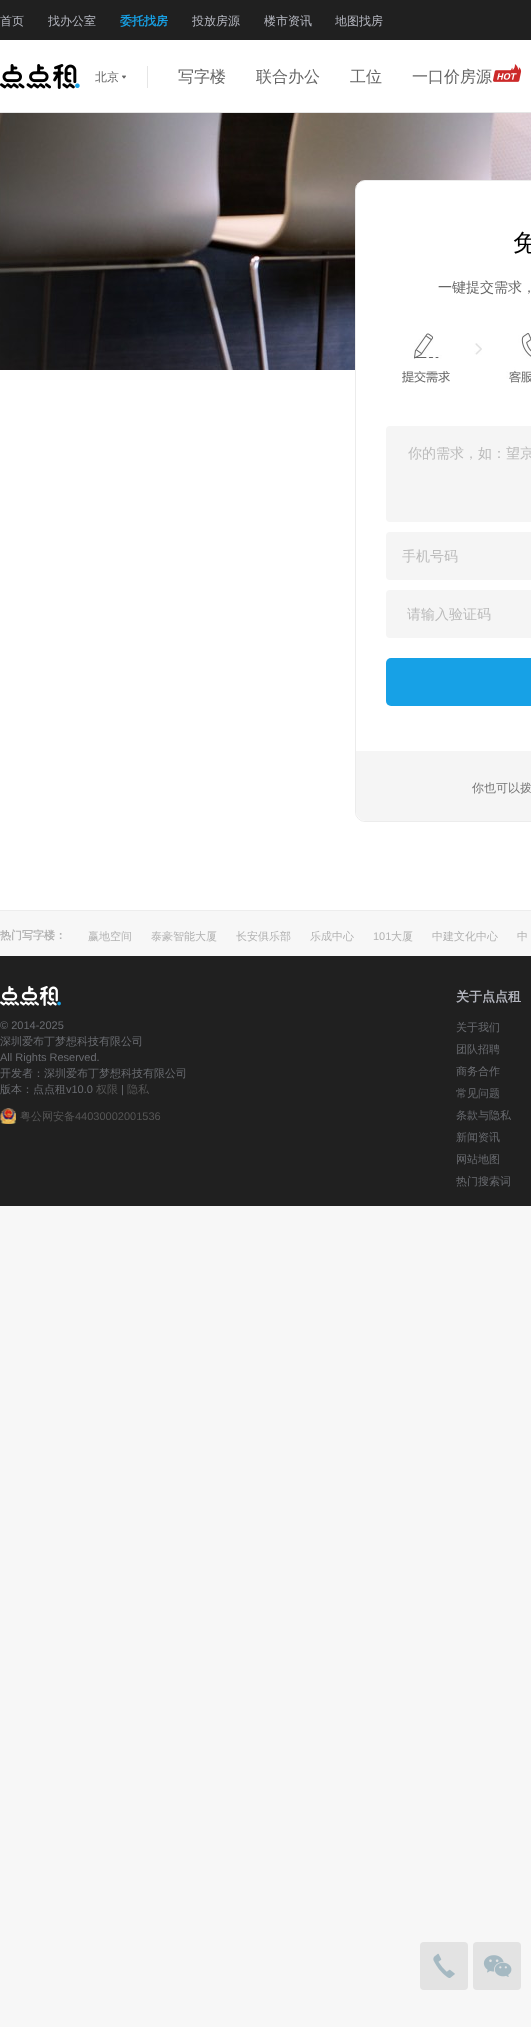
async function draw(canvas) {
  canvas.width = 531;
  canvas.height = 2027;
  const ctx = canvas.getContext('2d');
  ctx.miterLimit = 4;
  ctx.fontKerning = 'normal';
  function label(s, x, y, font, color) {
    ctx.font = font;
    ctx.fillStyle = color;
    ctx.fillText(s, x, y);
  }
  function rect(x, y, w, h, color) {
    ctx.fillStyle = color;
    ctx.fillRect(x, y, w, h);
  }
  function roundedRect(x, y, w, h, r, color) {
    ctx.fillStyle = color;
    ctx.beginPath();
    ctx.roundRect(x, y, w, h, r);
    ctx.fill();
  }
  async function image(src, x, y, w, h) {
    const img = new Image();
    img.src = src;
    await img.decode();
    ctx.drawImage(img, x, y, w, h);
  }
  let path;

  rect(0, 0, 531, 2027, '#f7f7f7');
  rect(0, 40, 531, 72, '#fff');
  rect(0, 112, 531, 1, '#e6e6e6');
  rect(0, 0, 531, 40, '#202020');
  label('首页', 0, 25, '500 12px WenQuanYi Zen Hei', '#b4b6bf');
  label('找办公室', 48, 25, '500 12px WenQuanYi Zen Hei', '#b4b6bf');
  label('委托找房', 120, 25, 'bold 12px WenQuanYi Zen Hei', '#17a1e6');
  label('投放房源', 192, 25, '500 12px WenQuanYi Zen Hei', '#b4b6bf');
  label('楼市资讯', 264, 25, '500 12px WenQuanYi Zen Hei', '#b4b6bf');
  label('地图找房', 335, 25, '500 12px WenQuanYi Zen Hei', '#b4b6bf');
  await image('assets/img1.png', 0, 64, 80, 25);
  rect(147, 66, 1, 22, '#e6e6e6');
  label('北京', 95, 81, '500 12px WenQuanYi Zen Hei', '#666');
  await image('assets/img2.png', 122, 75, 4, 4);
  label('写字楼', 178, 82, '500 16px WenQuanYi Zen Hei', '#666');
  label('联合办公', 256, 82, '500 16px WenQuanYi Zen Hei', '#666');
  label('工位', 350, 82, '500 16px WenQuanYi Zen Hei', '#666');
  label('一口价房源', 412, 82, '500 16px WenQuanYi Zen Hei', '#666');
  await image('assets/img3.png', 493, 64, 29, 18);
  rect(0, 370, 531, 540, '#fff');
  await image('assets/img4.png', 0, 113, 531, 257);
  ctx.beginPath();
  ctx.roundRect(355.5, 180.5, 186, 641, 9.5);
  ctx.fill();
  ctx.strokeStyle = '#ececec';
  ctx.stroke();
  label('免', 513, 251, '500 24px WenQuanYi Zen Hei', '#000');
  label('一键提交需求，', 438, 292, '500 14px WenQuanYi Zen Hei', '#666');
  await image('assets/img5.png', 402, 333, 129, 50);
  roundedRect(386, 426, 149, 96, 4, '#f5f5f5');
  label('你的需求，如：望京', 408, 458, '500 14px WenQuanYi Zen Hei', '#bbb');
  roundedRect(386, 532, 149, 48, 4, '#f5f5f5');
  label('手机号码', 402, 561, '500 14px WenQuanYi Zen Hei', '#bbb');
  roundedRect(386, 590, 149, 48, 4, '#f5f5f5');
  label('请输入验证码', 407, 619, '500 14px WenQuanYi Zen Hei', '#bbb');
  roundedRect(386, 658, 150, 48, 5, '#17a1e6');
  ctx.fillStyle = '#f5f5f5';
  path = new Path2D('M356 751H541V811C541 816.5 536.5 821 531 821H366C360.5 821 356 816.5 356 811Z');
  ctx.fill(path);
  label('你也可以拨', 472, 792, '500 12px WenQuanYi Zen Hei', '#777');
  rect(0, 956, 531, 250, '#202020');
  rect(0, 910, 531, 1, '#ededed');
  label('热门写字楼：', 0, 939, 'bold 11px WenQuanYi Zen Hei', '#b2b2b2');
  label('赢地空间', 88, 940, '500 11px WenQuanYi Zen Hei', '#b2b2b2');
  label('泰豪智能大厦', 151, 940, '500 11px WenQuanYi Zen Hei', '#b2b2b2');
  label('长安俱乐部', 236, 940, '500 11px WenQuanYi Zen Hei', '#b2b2b2');
  label('乐成中心', 310, 940, '500 11px WenQuanYi Zen Hei', '#b2b2b2');
  label('101', 373, 940, '11px Liberation Sans', '#b2b2b2');
  label('大厦', 391, 940, '500 11px WenQuanYi Zen Hei', '#b2b2b2');
  label('中建文化中心', 432, 940, '500 11px WenQuanYi Zen Hei', '#b2b2b2');
  label('中', 517, 940, '500 11px WenQuanYi Zen Hei', '#b2b2b2');
  await image('assets/img6.png', 0, 986, 61, 20);
  label('© 2014-2025', 0, 1029, '11px Liberation Sans', '#696b70');
  label('深圳爱布丁梦想科技有限公司', 0, 1045, '500 11px WenQuanYi Zen Hei', '#696b70');
  label('All Rights Reserved.', 0, 1061, '11px Liberation Sans', '#696b70');
  label('开发者：深圳爱布丁梦想科技有限公司', 0, 1077, '500 11px WenQuanYi Zen Hei', '#696b70');
  label('版本：点点租', 0, 1093, '500 11px WenQuanYi Zen Hei', '#696b70');
  label('v10.0', 66, 1093, '11px Liberation Sans', '#696b70');
  label('权限', 96, 1093, '500 11px WenQuanYi Zen Hei', '#555');
  label('|', 121, 1093, '11px Liberation Sans', '#696b70');
  label('隐私', 127, 1093, '500 11px WenQuanYi Zen Hei', '#555');
  await image('assets/img7.png', 0, 1108, 16, 16);
  label('粤公网安备', 20, 1120, '500 11px WenQuanYi Zen Hei', '#555');
  label('44030002001536', 75, 1120, '11px Liberation Sans', '#555');
  label('关于点点租', 456, 1001, 'bold 13px WenQuanYi Zen Hei', '#b4b6bf');
  label('关于我们', 456, 1031, '500 11px WenQuanYi Zen Hei', '#696b70');
  label('团队招聘', 456, 1053, '500 11px WenQuanYi Zen Hei', '#696b70');
  label('商务合作', 456, 1075, '500 11px WenQuanYi Zen Hei', '#696b70');
  label('常见问题', 456, 1097, '500 11px WenQuanYi Zen Hei', '#696b70');
  label('条款与隐私', 456, 1119, '500 11px WenQuanYi Zen Hei', '#696b70');
  label('新闻资讯', 456, 1141, '500 11px WenQuanYi Zen Hei', '#696b70');
  label('网站地图', 456, 1163, '500 11px WenQuanYi Zen Hei', '#696b70');
  label('热门搜索词', 456, 1185, '500 11px WenQuanYi Zen Hei', '#696b70');
  roundedRect(420, 1942, 48, 48, 4, '#e3e3e3');
  await image('assets/img8.png', 433, 1953, 22, 25);
  roundedRect(473, 1942, 48, 48, 4, '#e3e3e3');
  await image('assets/img9.png', 483, 1955, 29, 22);
}

draw(document.querySelector('canvas'));
